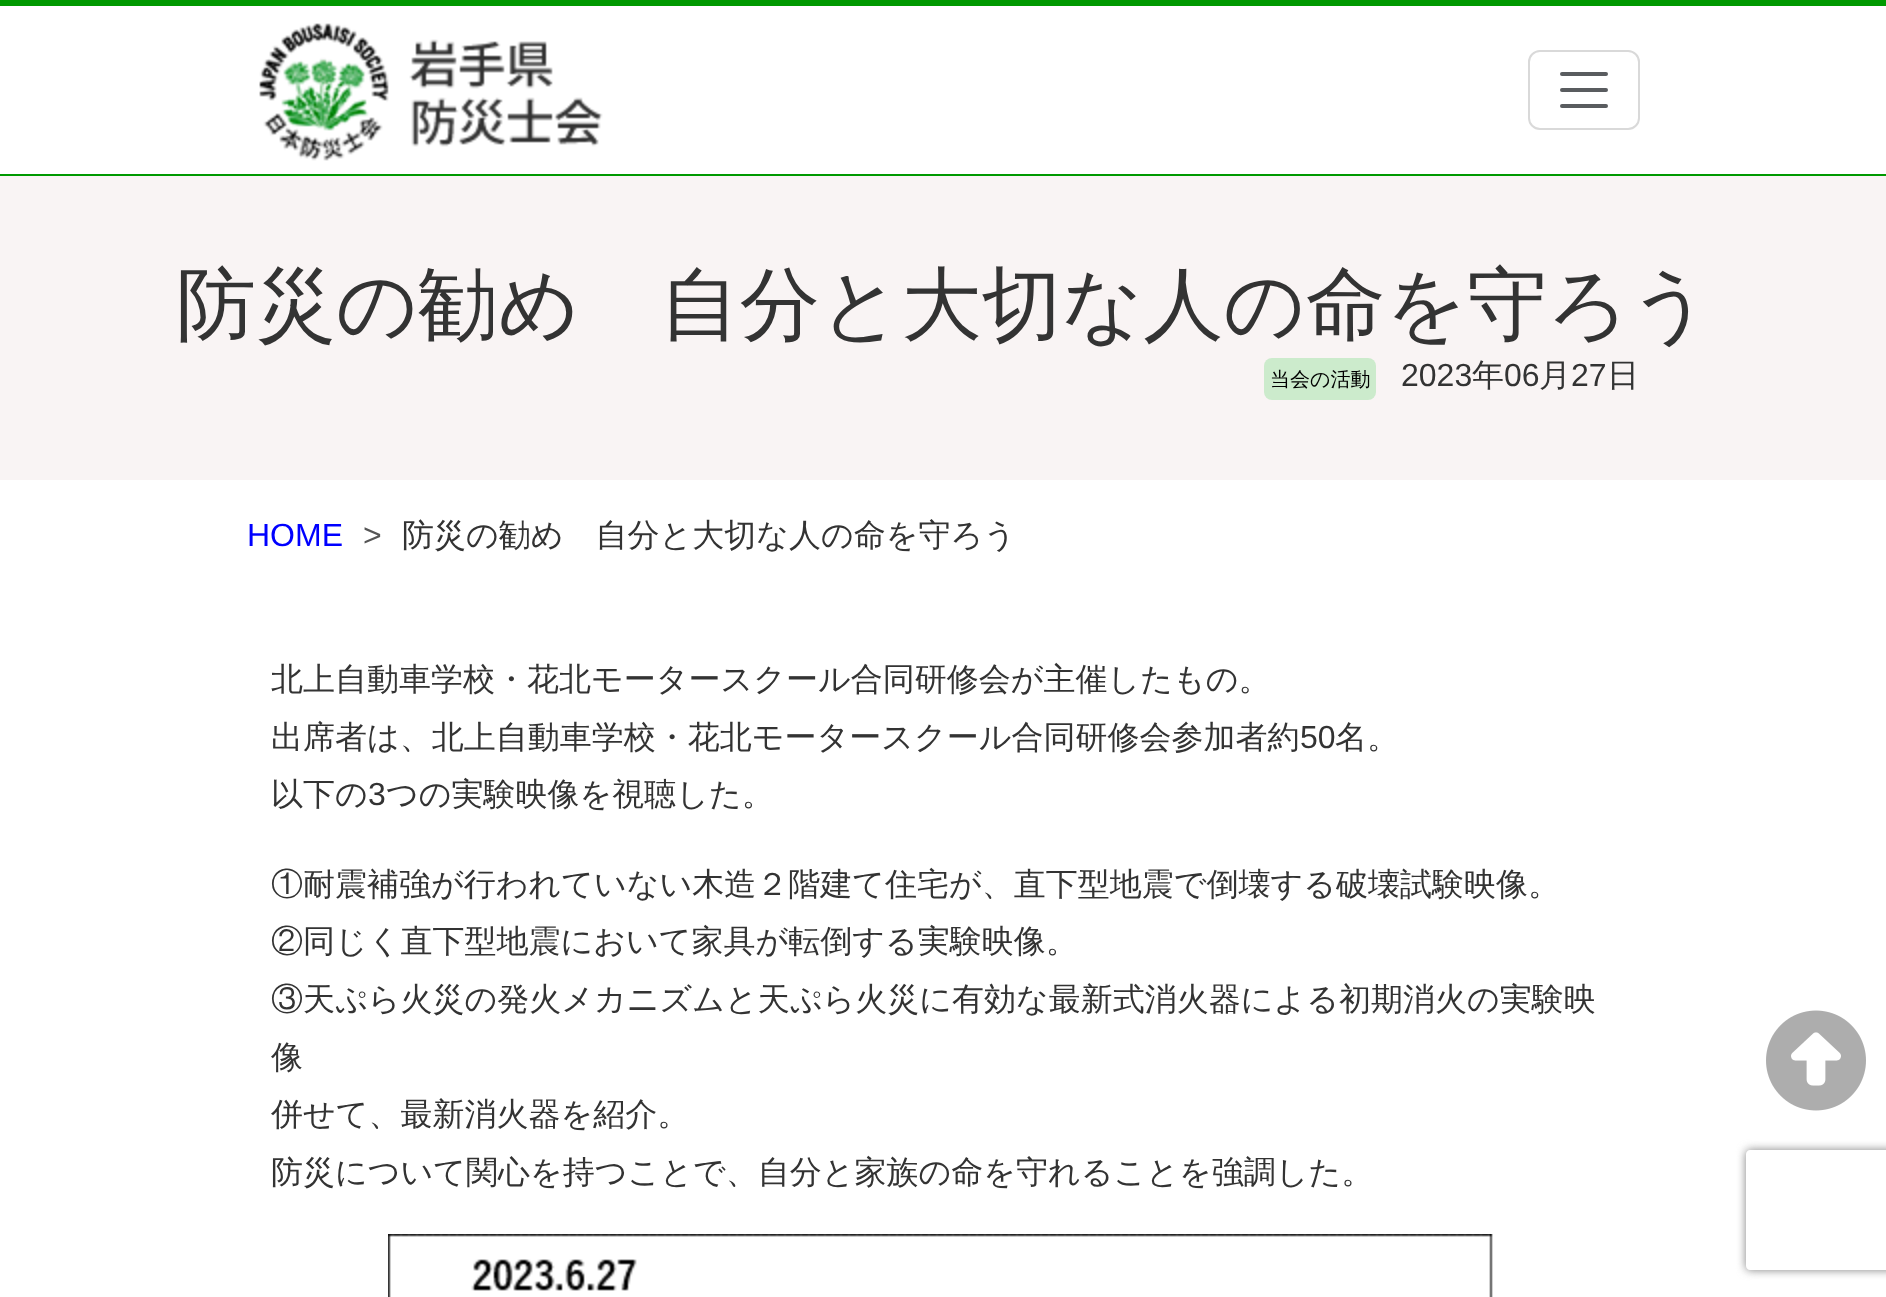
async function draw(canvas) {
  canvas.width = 1886;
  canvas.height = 1297;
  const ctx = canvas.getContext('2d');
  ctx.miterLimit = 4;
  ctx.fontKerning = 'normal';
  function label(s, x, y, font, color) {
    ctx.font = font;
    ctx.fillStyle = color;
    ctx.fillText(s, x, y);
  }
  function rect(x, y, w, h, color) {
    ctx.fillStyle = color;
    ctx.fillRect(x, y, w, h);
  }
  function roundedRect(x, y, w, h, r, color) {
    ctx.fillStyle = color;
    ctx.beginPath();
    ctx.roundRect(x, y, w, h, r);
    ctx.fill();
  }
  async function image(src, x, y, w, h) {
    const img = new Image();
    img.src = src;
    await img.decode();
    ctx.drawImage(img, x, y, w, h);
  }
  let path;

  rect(0, 0, 1886, 1297, '#fff');
  rect(0, 0, 1886, 6, '#090');
  rect(0, 174, 1886, 2, '#090');
  await image('assets/img1.png', 259, 23, 344, 138);
  ctx.beginPath();
  ctx.roundRect(1529, 51, 110, 78, 11);
  ctx.strokeStyle = '#d9d9d9';
  ctx.lineWidth = 2;
  ctx.stroke();
  path = new Path2D('M1562 74H1606M1562 90H1606M1562 106H1606');
  ctx.strokeStyle = '#595c5f';
  ctx.lineWidth = 4;
  ctx.lineCap = 'round';
  ctx.stroke(path);
  rect(0, 176, 1886, 304, '#f9f4f4');
  label('防災の勧め　自分と大切な人の命を守ろう', 176, 332, '500 80px WenQuanYi Zen Hei', '#333');
  roundedRect(1264, 358, 112, 42, 8, '#ccebcc');
  label('当会の活動', 1270, 386, '500 20px WenQuanYi Zen Hei', '#000');
  label('2023', 1401, 386, '32px Liberation Sans', '#333');
  label('年', 1472, 386, '500 32px WenQuanYi Zen Hei', '#333');
  label('06', 1504, 386, '32px Liberation Sans', '#333');
  label('月', 1539, 386, '500 32px WenQuanYi Zen Hei', '#333');
  label('27', 1571, 386, '32px Liberation Sans', '#333');
  label('日', 1607, 386, '500 32px WenQuanYi Zen Hei', '#333');
  label('HOME', 247, 546, '32px Liberation Sans', '#00f');
  label('>', 363, 546, '32px Liberation Sans', '#555');
  label('防災の勧め　自分と大切な人の命を守ろう', 402, 546, '500 32px WenQuanYi Zen Hei', '#333');
  label('北上自動車学校・花北モータースクール合同研修会が主催したもの。', 271, 690, '500 32px WenQuanYi Zen Hei', '#333');
  label('出席者は、北上自動車学校・花北モータースクール合同研修会参加者約', 271, 748, '500 32px WenQuanYi Zen Hei', '#333');
  label('50', 1300, 748, '32px Liberation Sans', '#333');
  label('名。', 1335, 748, '500 32px WenQuanYi Zen Hei', '#333');
  label('以下の', 271, 805, '500 32px WenQuanYi Zen Hei', '#333');
  label('3', 368, 805, '32px Liberation Sans', '#333');
  label('つの実験映像を視聴した。', 386, 805, '500 32px WenQuanYi Zen Hei', '#333');
  label('①耐震補強が行われていない木造２階建て住宅が、直下型地震で倒壊する破壊試験映像。', 271, 895, '500 32px WenQuanYi Zen Hei', '#333');
  label('②同じく直下型地震において家具が転倒する実験映像。', 271, 952, '500 32px WenQuanYi Zen Hei', '#333');
  label('③天ぷら火災の発火メカニズムと天ぷら火災に有効な最新式消火器による初期消火の実験映', 271, 1010, '500 32px WenQuanYi Zen Hei', '#333');
  label('像', 271, 1068, '500 32px WenQuanYi Zen Hei', '#333');
  label('併せて、最新消火器を紹介。', 271, 1125, '500 32px WenQuanYi Zen Hei', '#333');
  label('防災について関心を持つことで、自分と家族の命を守れることを強調した。', 271, 1183, '500 32px WenQuanYi Zen Hei', '#333');
  await image('assets/img2.png', 388, 1234, 1105, 63);
  await image('assets/img3.png', 1766, 1010, 100, 101);
  ctx.save();
  path = new Path2D('M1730 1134H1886V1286H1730ZM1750 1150H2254C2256 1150 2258 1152 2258 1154V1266C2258 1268 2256 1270 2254 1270H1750C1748 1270 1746 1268 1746 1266V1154C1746 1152 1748 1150 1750 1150Z');
  ctx.clip(path, 'evenodd');
  ctx.fillStyle = '#808080';
  ctx.filter = 'blur(5px)';
  ctx.beginPath();
  ctx.roundRect(1746, 1150, 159, 120, 4);
  ctx.fill();
  ctx.filter = 'none';
  ctx.restore();
}

draw(document.querySelector('canvas'));
